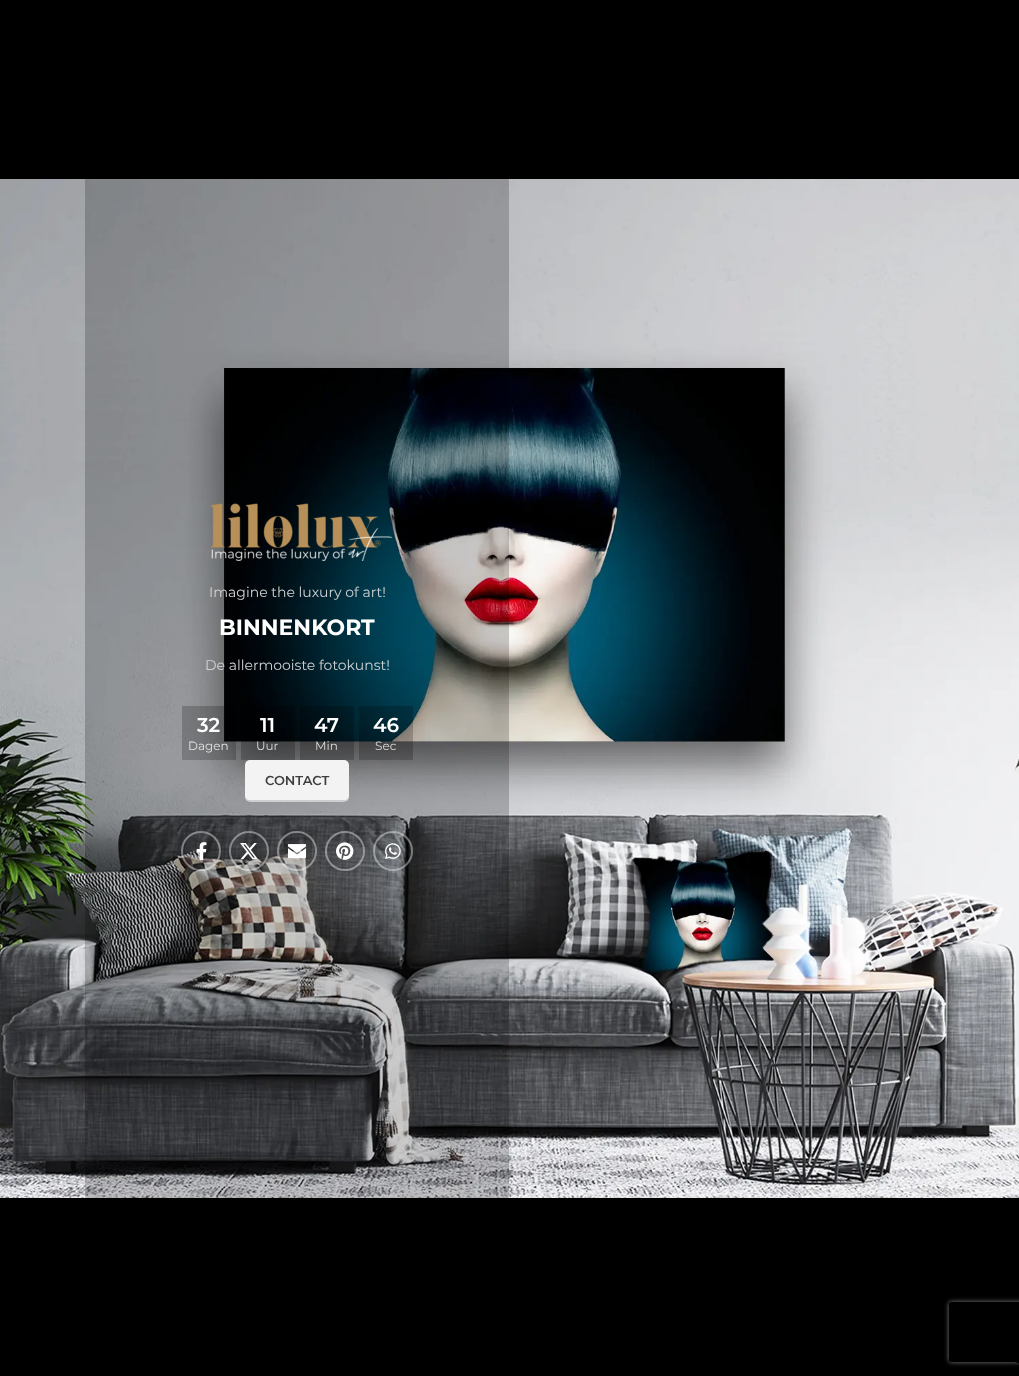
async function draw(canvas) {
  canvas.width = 1019;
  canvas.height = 1376;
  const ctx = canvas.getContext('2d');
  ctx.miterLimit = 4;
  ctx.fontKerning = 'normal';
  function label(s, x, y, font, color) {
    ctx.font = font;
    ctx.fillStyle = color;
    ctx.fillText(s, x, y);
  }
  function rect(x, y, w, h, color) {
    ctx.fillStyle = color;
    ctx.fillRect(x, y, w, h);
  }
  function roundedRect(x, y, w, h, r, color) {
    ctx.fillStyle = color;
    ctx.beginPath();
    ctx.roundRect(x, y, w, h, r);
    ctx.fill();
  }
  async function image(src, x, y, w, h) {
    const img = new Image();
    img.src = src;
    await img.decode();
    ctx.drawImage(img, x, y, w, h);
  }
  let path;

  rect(0, 0, 1019, 1376, '#000');
  await image('assets/img1.png', 0, 179, 1019, 1019);
  rect(85, 179, 424, 1019, '#00000033');
  await image('assets/img2.png', 210, 503, 183, 58);
  label('Imagine the luxury of art!', 209, 597, '14px Montserrat', '#ced3d5');
  label('BINNENKORT', 219, 635, 'bold 22px Montserrat', '#fff');
  label('De allermooiste fotokunst!', 205, 670, '14px Montserrat', '#ced3d5');
  rect(182, 706, 54, 54, '#00000033');
  label('32', 197, 732, '600 20px Montserrat', '#fff');
  label('Dagen', 188, 750, '12px Montserrat', '#e2e2e3');
  rect(241, 706, 54, 54, '#00000033');
  label('11', 260, 732, '600 20px Montserrat', '#fff');
  label('Uur', 256, 750, '12px Montserrat', '#dadada');
  rect(300, 706, 54, 54, '#00000033');
  label('47', 314, 732, '600 20px Montserrat', '#fff');
  label('Min', 315, 750, '12px Montserrat', '#dadada');
  rect(359, 706, 54, 54, '#00000033');
  label('46', 373, 732, '600 20px Montserrat', '#fff');
  label('Sec', 375, 750, '12px Montserrat', '#dadada');
  roundedRect(245, 760, 104, 42, 5, '#f3f3f3');
  ctx.fillStyle = '#00000026';
  path = new Path2D('M245 795V797C245 800 247 802 250 802H344C347 802 349 800 349 797V795C349 798 347 800 344 800H250C247 800 245 798 245 795Z');
  ctx.fill(path);
  label('CONTACT', 265, 785, '600 13px Montserrat', '#3e3e3e');
  ctx.beginPath();
  ctx.arc(201, 851, 19, 0, 2 * Math.PI);
  ctx.strokeStyle = '#ffffff66';
  ctx.lineWidth = 2;
  ctx.stroke();
  await image('assets/img3.png', 196, 842, 11, 19);
  ctx.beginPath();
  ctx.arc(249, 851, 19, 0, 2 * Math.PI);
  ctx.stroke();
  await image('assets/img4.png', 240, 843, 18, 17);
  ctx.beginPath();
  ctx.arc(297, 851, 19, 0, 2 * Math.PI);
  ctx.stroke();
  await image('assets/img5.png', 288, 844, 18, 15);
  ctx.beginPath();
  ctx.arc(345, 851, 19, 0, 2 * Math.PI);
  ctx.stroke();
  await image('assets/img6.png', 336, 842, 18, 18);
  ctx.beginPath();
  ctx.arc(393, 851, 19, 0, 2 * Math.PI);
  ctx.stroke();
  await image('assets/img7.png', 385, 843, 16, 16);
  ctx.save();
  path = new Path2D('M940 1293H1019V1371H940ZM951 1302H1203C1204 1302 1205 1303 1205 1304V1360C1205 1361 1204 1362 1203 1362H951C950 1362 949 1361 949 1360V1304C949 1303 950 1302 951 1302Z');
  ctx.clip(path, 'evenodd');
  ctx.fillStyle = '#808080';
  ctx.filter = 'blur(2.5px)';
  ctx.beginPath();
  ctx.roundRect(949, 1302, 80, 60, 2);
  ctx.fill();
  ctx.filter = 'none';
  ctx.restore();
  roundedRect(1007, 1324, 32, 40, 20, '#000');
}

draw(document.querySelector('canvas'));
